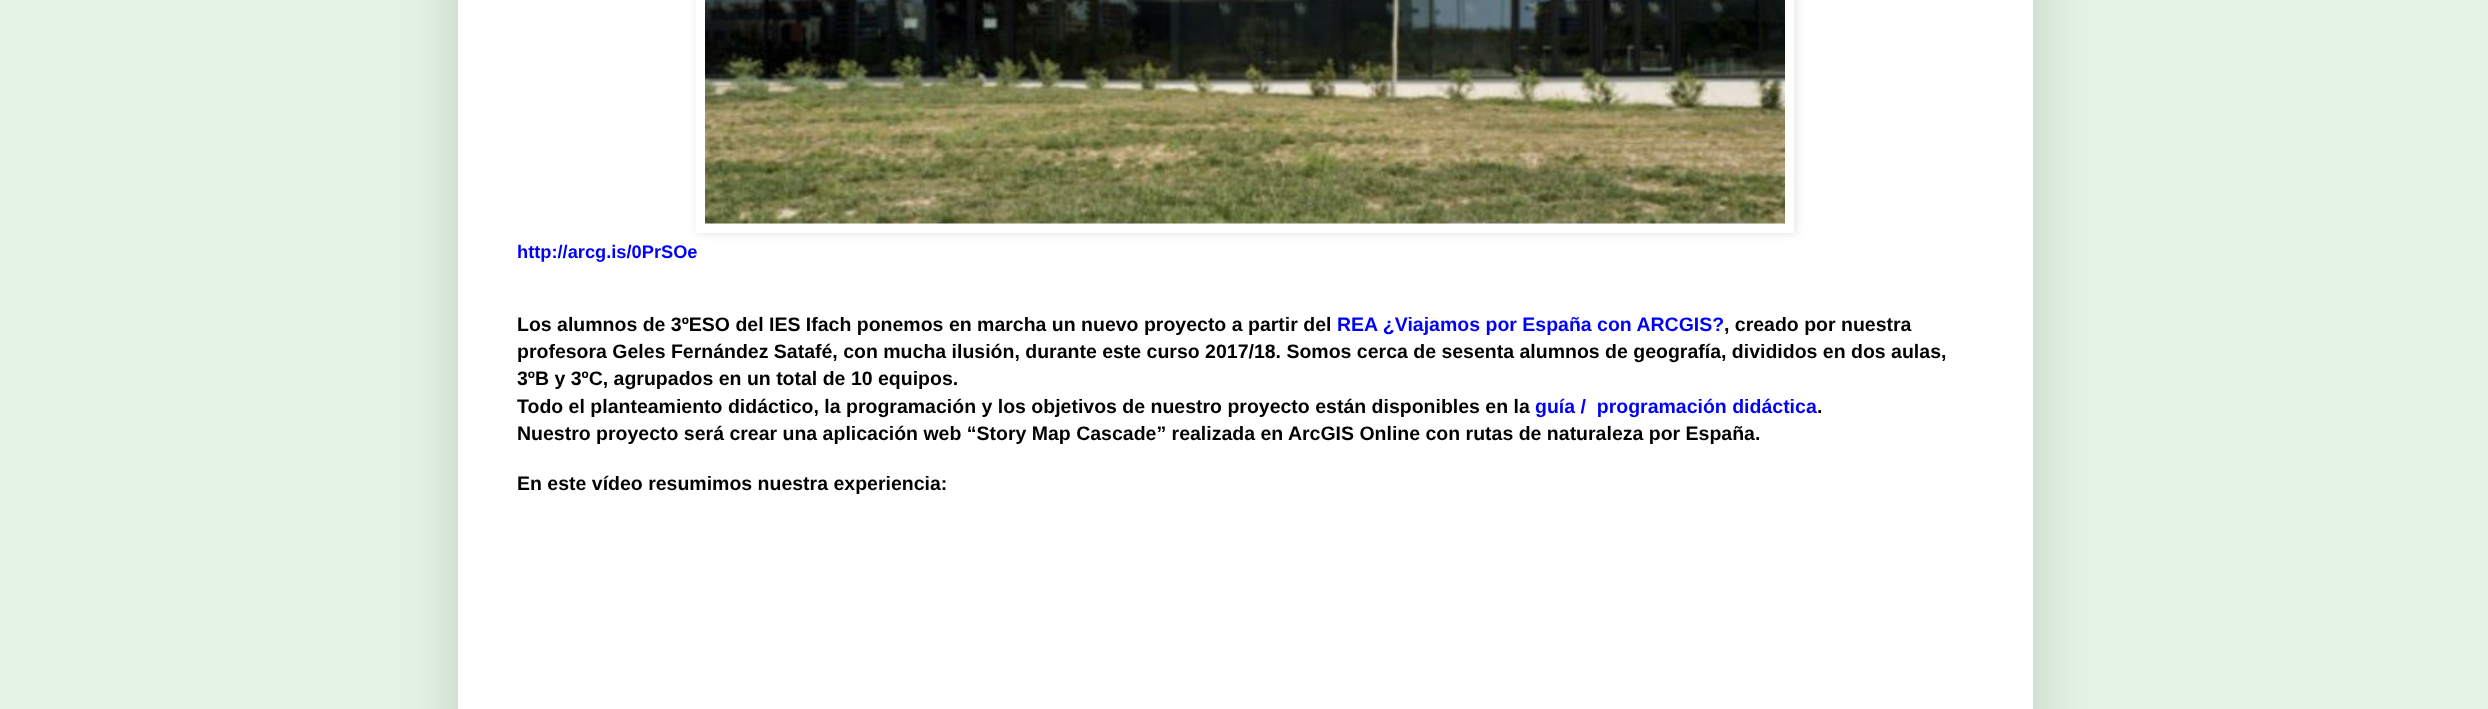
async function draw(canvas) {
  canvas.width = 2488;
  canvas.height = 709;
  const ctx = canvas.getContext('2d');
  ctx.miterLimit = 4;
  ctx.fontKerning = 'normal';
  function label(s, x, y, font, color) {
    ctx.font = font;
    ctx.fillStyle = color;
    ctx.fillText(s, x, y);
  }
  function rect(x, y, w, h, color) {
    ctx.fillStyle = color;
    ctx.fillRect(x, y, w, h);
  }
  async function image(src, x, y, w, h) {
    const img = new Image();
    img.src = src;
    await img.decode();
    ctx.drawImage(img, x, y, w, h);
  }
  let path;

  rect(0, 0, 2488, 709, '#e4f3e4');
  ctx.fillStyle = '#00000026';
  ctx.filter = 'blur(30px)';
  ctx.beginPath();
  ctx.rect(458, -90, 1575, 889);
  ctx.fill();
  ctx.filter = 'none';
  rect(458, 0, 1575, 709, '#fff');
  ctx.save();
  path = new Path2D('M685 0H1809V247H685ZM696-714H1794V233H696Z');
  ctx.clip(path, 'evenodd');
  ctx.fillStyle = '#0000001a';
  ctx.filter = 'blur(4px)';
  ctx.beginPath();
  ctx.rect(698, -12, 1098, 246);
  ctx.fill();
  ctx.filter = 'none';
  ctx.restore();
  await image('assets/img1.png', 705, 0, 1080, 224);
  label('http://arcg.is/0PrSOe', 517, 258, 'bold 18.25px Liberation Sans', '#0000f6');
  label('Los alumnos de 3ºESO del IES Ifach ponemos en marcha un nuevo proyecto a partir del', 517, 331, 'bold 19.5px Liberation Sans', '#000');
  label('REA ¿Viajamos por España con ARCGIS?', 1337, 331, 'bold 19.5px Liberation Sans', '#0000f6');
  label(', creado por nuestra', 1724, 331, 'bold 19.5px Liberation Sans', '#000');
  label('profesora Geles Fernández Satafé, con mucha ilusión, durante este curso 2017/18. Somos cerca de sesenta alumnos de geografía, divididos en dos aulas,', 517, 358, 'bold 19.5px Liberation Sans', '#000');
  label('3ºB y 3ºC, agrupados en un total de 10 equipos.', 517, 385, 'bold 19.5px Liberation Sans', '#000');
  label('Todo el planteamiento didáctico, la programación y los objetivos de nuestro proyecto están disponibles en la', 517, 413, 'bold 19.5px Liberation Sans', '#000');
  label('guía /  programación didáctica', 1535, 413, 'bold 19.5px Liberation Sans', '#0000f6');
  label('.', 1817, 413, 'bold 19.5px Liberation Sans', '#000');
  label('Nuestro proyecto será crear una aplicación web “Story Map Cascade” realizada en ArcGIS Online con rutas de naturaleza por España.', 517, 440, 'bold 19.5px Liberation Sans', '#000');
  label('En este vídeo resumimos nuestra experiencia:', 517, 490, 'bold 19.5px Liberation Sans', '#000');
}

draw(document.querySelector('canvas'));
